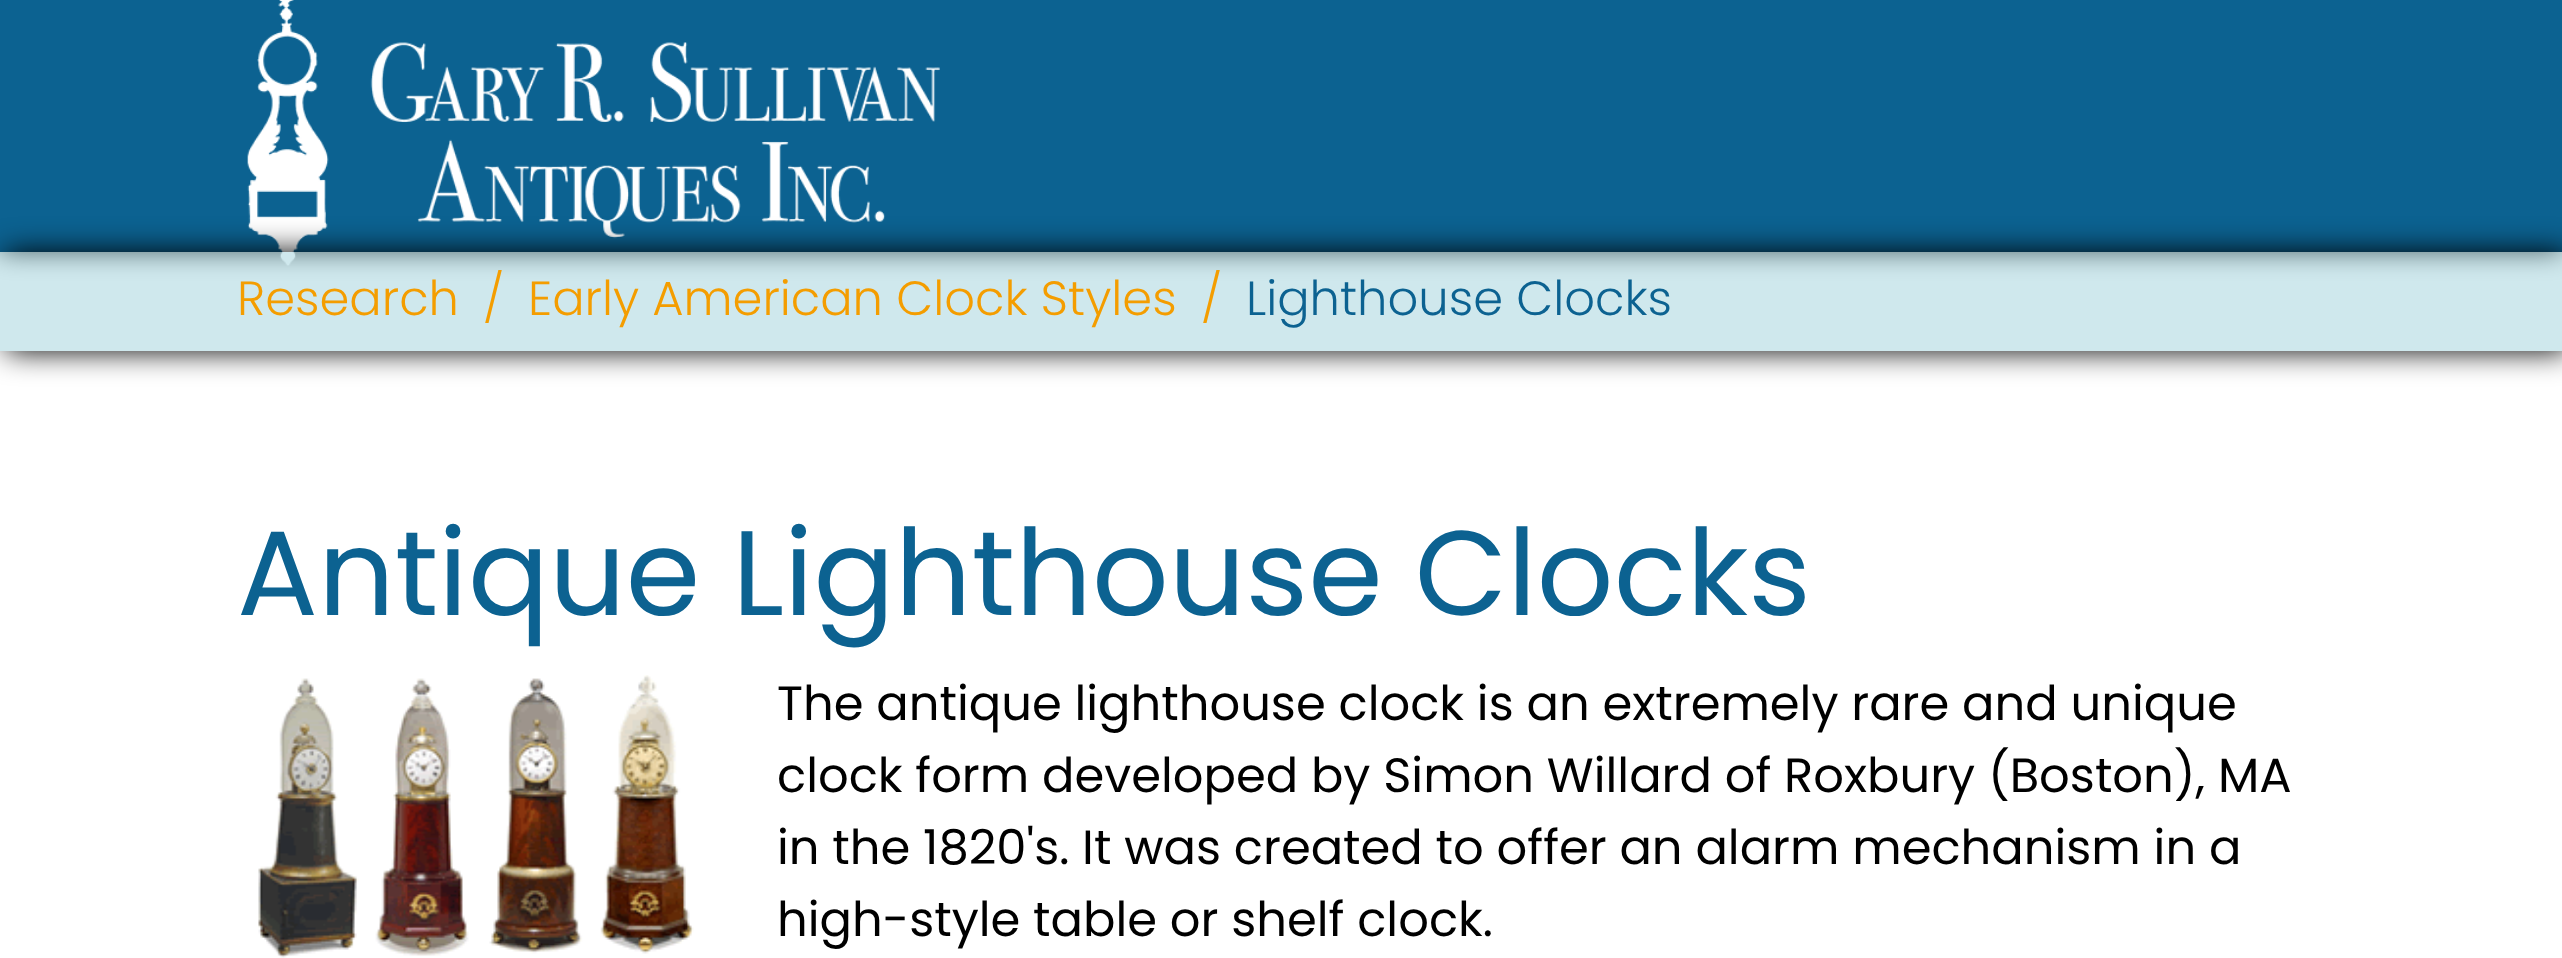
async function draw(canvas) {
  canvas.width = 2562;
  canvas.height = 958;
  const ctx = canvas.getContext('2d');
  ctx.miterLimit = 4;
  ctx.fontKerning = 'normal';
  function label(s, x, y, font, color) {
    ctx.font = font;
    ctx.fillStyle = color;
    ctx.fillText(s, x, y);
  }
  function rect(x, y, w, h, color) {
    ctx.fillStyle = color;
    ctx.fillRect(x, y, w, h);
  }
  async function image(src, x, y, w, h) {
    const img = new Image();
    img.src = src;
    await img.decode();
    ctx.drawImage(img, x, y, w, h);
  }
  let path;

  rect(0, 0, 2562, 958, '#fff');
  ctx.fillStyle = '#000';
  ctx.filter = 'blur(13.5px)';
  ctx.beginPath();
  ctx.rect(0, 0, 2562, 252);
  ctx.fill();
  ctx.filter = 'none';
  rect(0, 0, 2562, 252, '#0c6291');
  await image('assets/img1.png', 247, 0, 693, 266);
  ctx.save();
  path = new Path2D('M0 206H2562V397H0ZM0 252H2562V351H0Z');
  ctx.clip(path, 'evenodd');
  ctx.fillStyle = '#000';
  ctx.filter = 'blur(15px)';
  ctx.beginPath();
  ctx.rect(6, 252, 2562, 99);
  ctx.fill();
  ctx.filter = 'none';
  ctx.restore();
  rect(0, 252, 2562, 99, '#a0d2db80');
  label('Research', 237, 315, '300 48px Poppins', '#f49d00');
  label('/', 483, 315, '300 48px Poppins', '#f49d00');
  label('Early American Clock Styles', 528, 315, '300 48px Poppins', '#f49d00');
  label('/', 1201, 315, '300 48px Poppins', '#f49d00');
  label('Lighthouse Clocks', 1246, 315, '300 48px Poppins', '#0c6291');
  label('Antique Lighthouse Clocks', 237, 615, '120px Poppins', '#0c6291');
  await image('assets/img2.png', 258, 675, 436, 283);
  label('The antique lighthouse clock is an extremely rare and unique', 777, 720, '48px Poppins', '#000');
  label('clock form developed by Simon Willard of Roxbury (Boston), MA', 777, 792, '48px Poppins', '#000');
  label('in the 1820\'s. It was created to offer an alarm mechanism in a', 777, 864, '48px Poppins', '#000');
  label('high-style table or shelf clock.', 777, 936, '48px Poppins', '#000');
}

draw(document.querySelector('canvas'));
